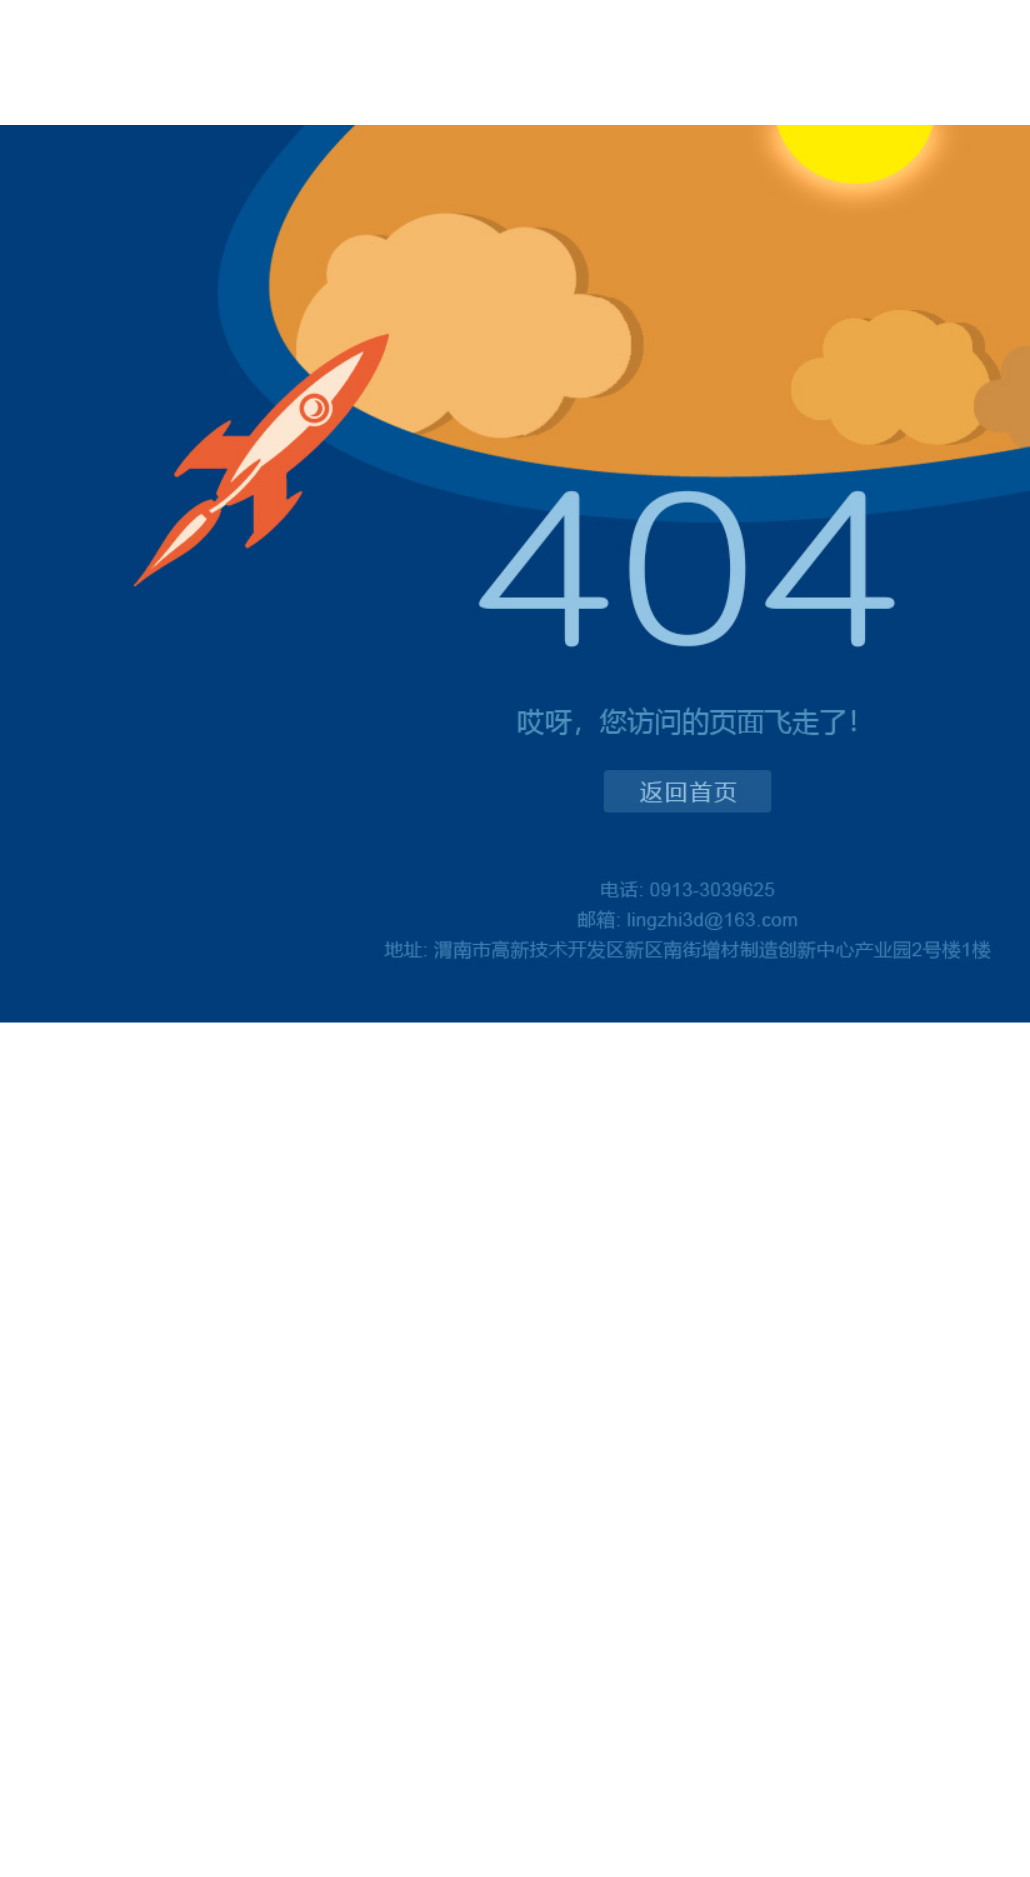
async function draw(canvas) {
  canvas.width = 1030;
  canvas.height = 1877;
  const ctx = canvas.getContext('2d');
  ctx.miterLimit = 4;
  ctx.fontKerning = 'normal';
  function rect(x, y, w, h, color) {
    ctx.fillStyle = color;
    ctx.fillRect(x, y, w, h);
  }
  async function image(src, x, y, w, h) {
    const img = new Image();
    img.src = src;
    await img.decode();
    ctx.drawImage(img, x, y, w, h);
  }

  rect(0, 0, 1030, 1877, '#fff');
  await image('assets/img1.png', 0, 125, 1030, 898);
}

draw(document.querySelector('canvas'));
